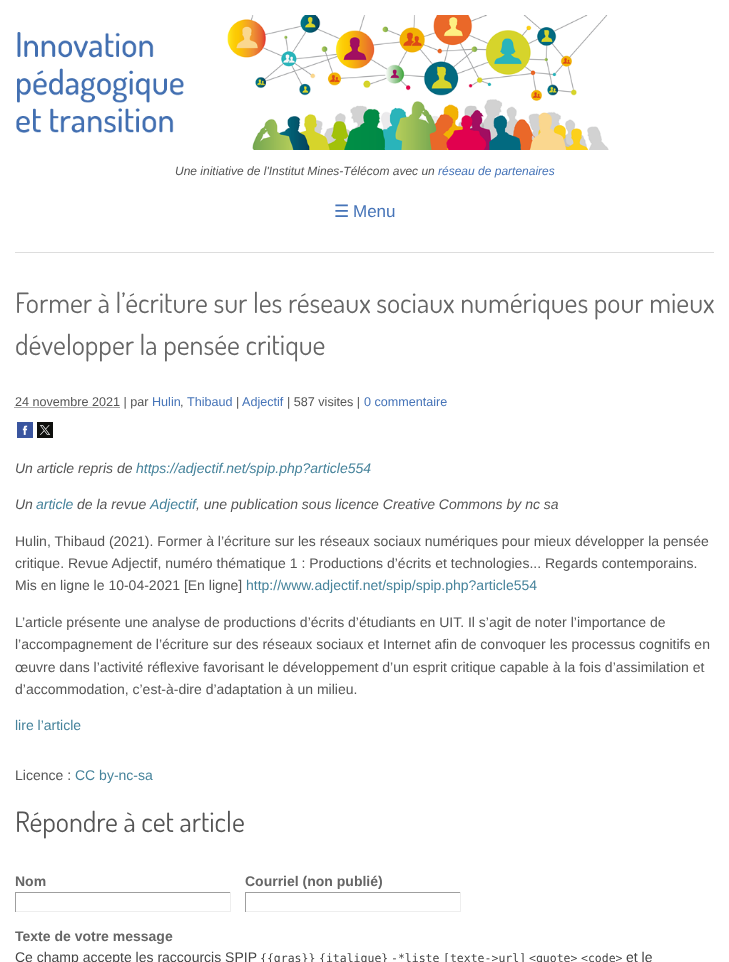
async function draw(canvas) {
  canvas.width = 729;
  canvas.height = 962;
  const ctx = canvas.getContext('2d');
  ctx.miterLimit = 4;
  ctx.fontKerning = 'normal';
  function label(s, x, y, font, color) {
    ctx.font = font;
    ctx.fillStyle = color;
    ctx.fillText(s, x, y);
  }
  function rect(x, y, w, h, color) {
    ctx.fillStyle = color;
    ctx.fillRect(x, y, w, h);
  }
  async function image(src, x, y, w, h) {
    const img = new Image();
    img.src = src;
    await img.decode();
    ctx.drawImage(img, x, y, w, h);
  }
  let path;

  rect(0, 0, 729, 962, '#fff');
  await image('assets/img1.png', 16, 15, 593, 135);
  label('Une initiative de l\'Institut Mines-Télécom avec un', 175, 175, 'italic 12px Liberation Sans', '#555');
  label('réseau de partenaires', 438, 175, 'italic 12px Liberation Sans', '#4674b8');
  label('☰', 334, 217, '17px DejaVu Sans', '#4674b8');
  label('Menu', 353, 217, '17px Liberation Sans', '#4674b8');
  rect(15, 252, 699, 1, '#ddd');
  label('Former à l’écriture sur les réseaux sociaux numériques pour mieux', 15, 313, '28px Dosis', '#666');
  label('développer la pensée critique', 15, 355, '28px Dosis', '#666');
  path = new Path2D('M14.5 407.5H119.5');
  ctx.strokeStyle = '#555';
  ctx.setLineDash([1, 1]);
  ctx.stroke(path);
  label('24 novembre 2021 | par', 15, 406, '12.6px Liberation Sans', '#555');
  label('Hulin', 152, 406, '12.6px Liberation Sans', '#4674b8');
  label(',', 180, 406, '12.6px Liberation Sans', '#555');
  label('Thibaud', 187, 406, '12.6px Liberation Sans', '#4674b8');
  label('|', 236, 406, '12.6px Liberation Sans', '#555');
  label('Adjectif', 242, 406, '12.6px Liberation Sans', '#4674b8');
  label('| 587 visites |', 287, 406, '12.6px Liberation Sans', '#555');
  label('0 commentaire', 364, 406, '12.6px Liberation Sans', '#4674b8');
  await image('assets/img2.png', 17, 422, 16, 16);
  await image('assets/img3.png', 37, 422, 16, 16);
  label('Un article repris de', 15, 473, 'italic 14px Liberation Sans', '#555');
  label('https://adjectif.net/spip.php?article554', 136, 473, 'italic 14px Liberation Sans', '#46839b');
  label('Un', 15, 509, 'italic 14px Liberation Sans', '#555');
  label('article', 36, 509, 'italic 14px Liberation Sans', '#46839b');
  label('de la revue', 77, 509, 'italic 14px Liberation Sans', '#555');
  label('Adjectif', 150, 509, 'italic 14px Liberation Sans', '#46839b');
  label(', une publication sous licence Creative Commons by nc sa', 196, 509, 'italic 14px Liberation Sans', '#555');
  label('Hulin, Thibaud (2021). Former à l’écriture sur les réseaux sociaux numériques pour mieux développer la pensée', 15, 546, '14px Liberation Sans', '#555');
  label('critique. Revue Adjectif, numéro thématique 1 : Productions d’écrits et technologies... Regards contemporains.', 15, 568, '14px Liberation Sans', '#555');
  label('Mis en ligne le 10-04-2021 [En ligne]', 15, 590, '14px Liberation Sans', '#555');
  label('http://www.adjectif.net/spip/spip.php?article554', 246, 590, '14px Liberation Sans', '#46839b');
  label('L’article présente une analyse de productions d’écrits d’étudiants en UIT. Il s’agit de noter l’importance de', 15, 627, '14px Liberation Sans', '#555');
  label('l’accompagnement de l’écriture sur des réseaux sociaux et Internet afin de convoquer les processus cognitifs en', 15, 649, '14px Liberation Sans', '#555');
  label('œuvre dans l’activité réflexive favorisant le développement d’un esprit critique capable à la fois d’assimilation et', 15, 672, '14px Liberation Sans', '#555');
  label('d’accommodation, c’est-à-dire d’adaptation à un milieu.', 15, 694, '14px Liberation Sans', '#555');
  label('lire l’article', 15, 730, '14px Liberation Sans', '#46839b');
  label('Licence :', 15, 780, '14px Liberation Sans', '#555');
  label('CC by-nc-sa', 75, 780, '14px Liberation Sans', '#46839b');
  label('Répondre à cet article', 15, 832, '28px Dosis', '#555');
  label('Nom', 15, 886, 'bold 14px Liberation Sans', '#666');
  rect(15, 892, 216, 1, '#9f9f9f');
  rect(230, 892, 1, 20, '#eee');
  rect(15, 911, 216, 1, '#eee');
  rect(15, 892, 1, 20, '#9f9f9f');
  label('Courriel (non publié)', 245, 886, 'bold 14px Liberation Sans', '#666');
  rect(245, 892, 216, 1, '#9f9f9f');
  rect(460, 892, 1, 20, '#eee');
  rect(245, 911, 216, 1, '#eee');
  rect(245, 892, 1, 20, '#9f9f9f');
  label('Texte de votre message', 15, 941, 'bold 14px Liberation Sans', '#666');
  label('Ce champ accepte les raccourcis SPIP', 15, 962, '14px Liberation Sans', '#444');
  label('{{gras}}', 260, 962, '11.5px DejaVu Sans Mono', '#444');
  label('{italique}', 319, 962, '11.5px DejaVu Sans Mono', '#444');
  label('-*liste', 391, 962, '11.5px DejaVu Sans Mono', '#444');
  label('[texte->url]', 443, 962, '11.5px DejaVu Sans Mono', '#444');
  label('<quote>', 529, 962, '11.5px DejaVu Sans Mono', '#444');
  label('<code>', 581, 962, '11.5px DejaVu Sans Mono', '#444');
  label('et le', 626, 962, '14px Liberation Sans', '#444');
}

draw(document.querySelector('canvas'));
